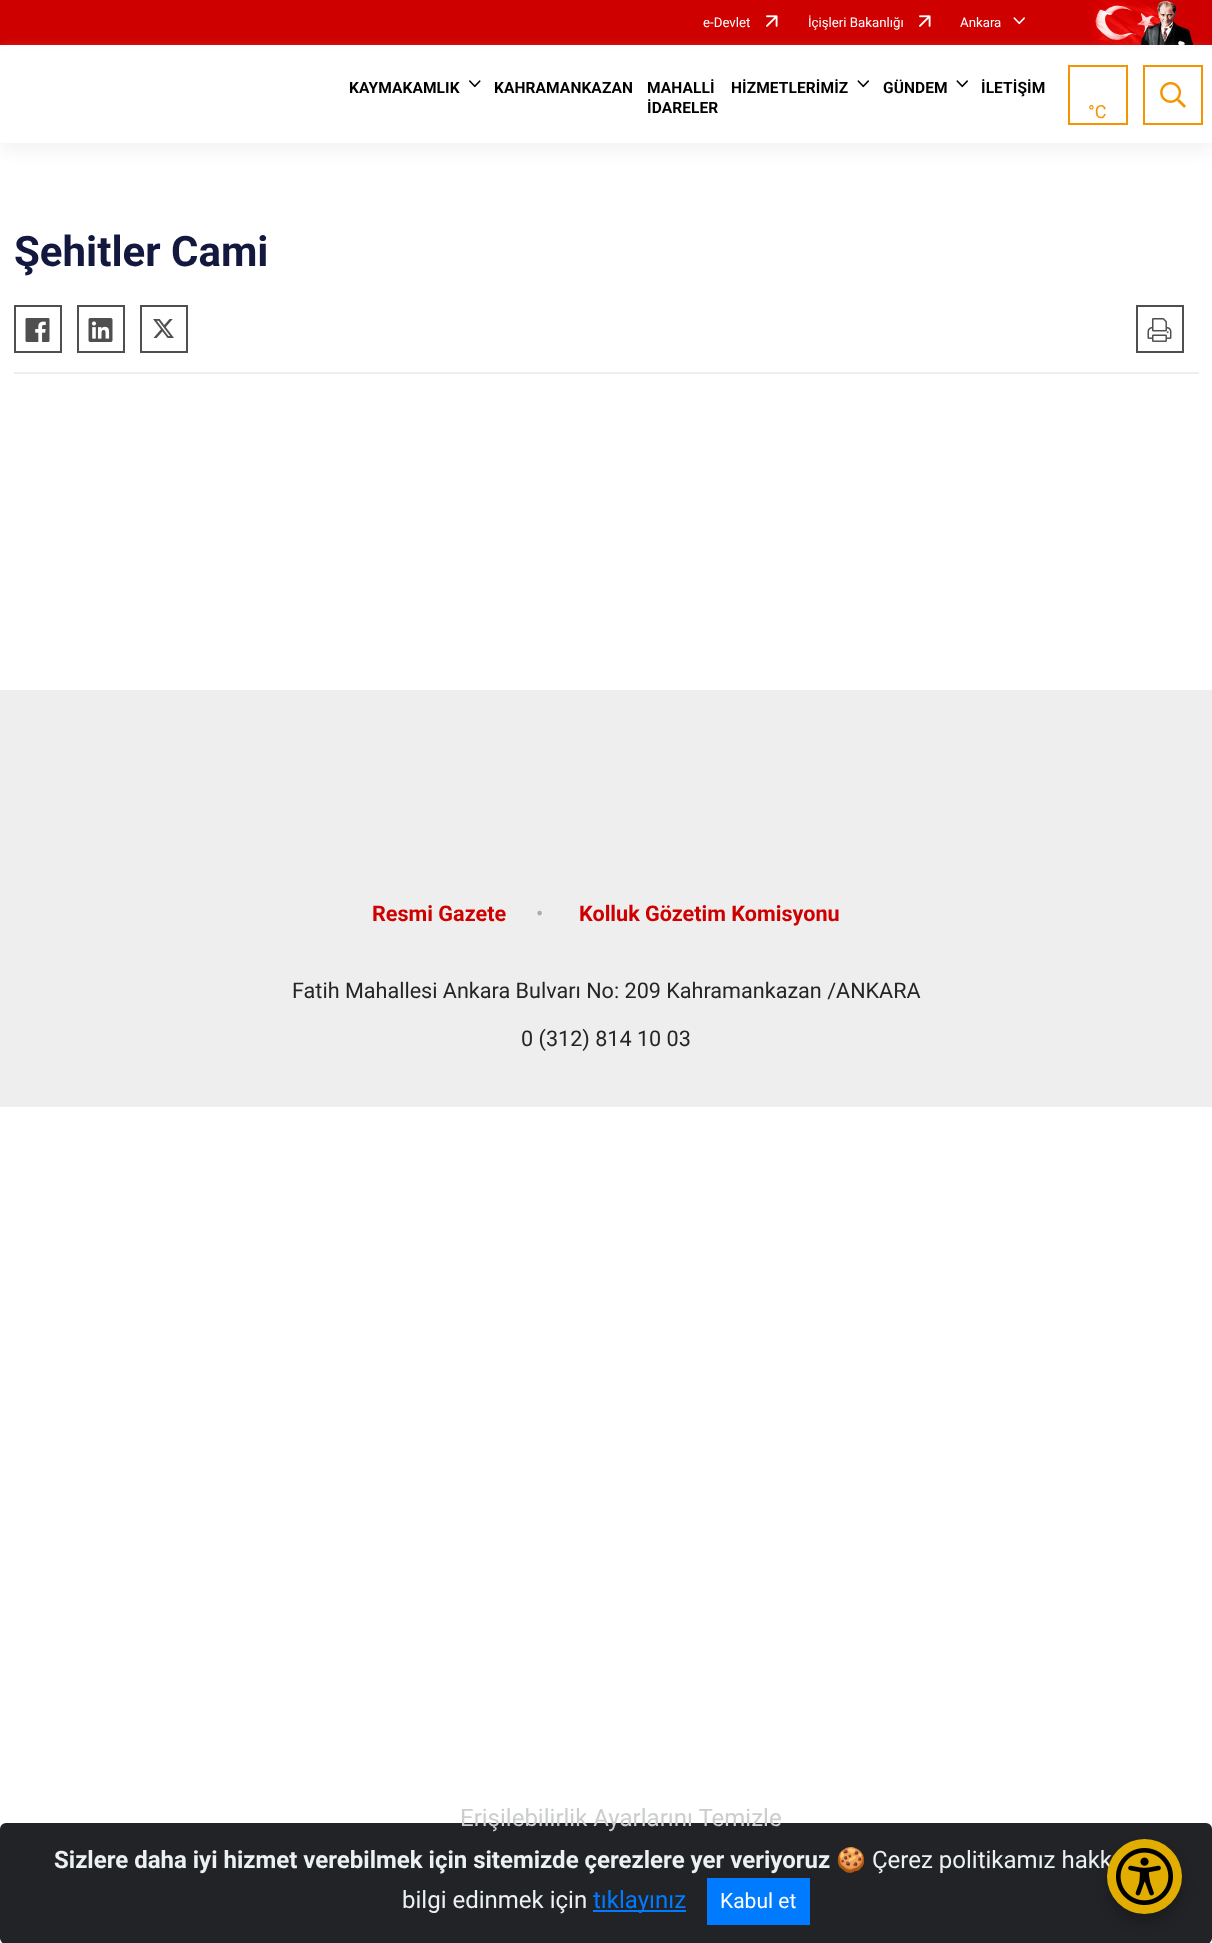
async function draw(canvas) {
  canvas.width = 1212;
  canvas.height = 1943;
  const ctx = canvas.getContext('2d');
  ctx.miterLimit = 4;
  ctx.fontKerning = 'normal';
  function label(s, x, y, font, color) {
    ctx.font = font;
    ctx.fillStyle = color;
    ctx.fillText(s, x, y);
  }
  function rect(x, y, w, h, color) {
    ctx.fillStyle = color;
    ctx.fillRect(x, y, w, h);
  }
  function roundedRect(x, y, w, h, r, color) {
    ctx.fillStyle = color;
    ctx.beginPath();
    ctx.roundRect(x, y, w, h, r);
    ctx.fill();
  }
  async function image(src, x, y, w, h) {
    const img = new Image();
    img.src = src;
    await img.decode();
    ctx.drawImage(img, x, y, w, h);
  }

  rect(0, 0, 1212, 1943, '#fff');
  rect(0, 0, 1212, 45, '#ce0000');
  label('e-Devlet', 703, 27, '13.25px Roboto', '#fff');
  await image('assets/img1.png', 766, 15, 12, 12);
  label('İçişleri Bakanlığı', 808, 27, '13.25px Roboto', '#fff');
  await image('assets/img1.png', 919, 15, 12, 12);
  label('Ankara', 960, 27, '13.25px Roboto', '#fff');
  await image('assets/img2.png', 1013, 17, 12, 8);
  await image('assets/img3.png', 1090, 0, 104, 45);
  ctx.fillStyle = '#eeeeee9e';
  ctx.filter = 'blur(7.5px)';
  ctx.beginPath();
  ctx.rect(0, 54, 1212, 98);
  ctx.fill();
  ctx.filter = 'none';
  rect(0, 49, 1212, 94, '#fff');
  ctx.letterSpacing = '0.1px';
  label('KAYMAKAMLIK', 349, 93, 'bold 15.5px Roboto', '#000');
  await image('assets/img4.png', 469, 80, 12, 8);
  label('KAHRAMANKAZAN', 494, 93, 'bold 15.5px Roboto', '#000');
  label('MAHALLİ', 647, 93, 'bold 15.5px Roboto', '#000');
  label('İDARELER', 647, 113, 'bold 15.5px Roboto', '#000');
  label('HİZMETLERİMİZ', 731, 93, 'bold 15.5px Roboto', '#000');
  await image('assets/img5.png', 857, 80, 12, 8);
  label('GÜNDEM', 883, 93, 'bold 15.5px Roboto', '#000');
  await image('assets/img5.png', 956, 80, 12, 8);
  label('İLETİŞİM', 981, 93, 'bold 15.5px Roboto', '#000');
  ctx.strokeStyle = '#f59300';
  ctx.lineWidth = 2;
  ctx.strokeRect(1069, 66, 58, 58);
  ctx.letterSpacing = '0px';
  label('°C', 1088, 118, '18px Roboto', '#f59300');
  ctx.strokeRect(1144, 66, 58, 58);
  await image('assets/img6.png', 1160, 82, 26, 26);
  rect(14, 372, 1185, 2, '#eee');
  label('Şehitler Cami', 14, 266, 'bold 42px Roboto', '#13183e');
  ctx.strokeStyle = '#4f4f4f';
  ctx.strokeRect(15, 306, 46, 46);
  await image('assets/img7.png', 25, 318, 25, 24);
  ctx.strokeRect(78, 306, 46, 46);
  await image('assets/img8.png', 88, 318, 25, 24);
  ctx.strokeRect(141, 306, 46, 46);
  await image('assets/img9.png', 153, 319, 21, 19);
  ctx.strokeRect(1137, 306, 46, 46);
  await image('assets/img10.png', 1147, 318, 25, 24);
  rect(0, 690, 1212, 417, '#eee');
  label('Resmi Gazete', 372, 921, 'bold 21.6px Roboto', '#ce0000');
  label('•', 536, 921, '21.6px Roboto', '#aaa');
  label('Kolluk Gözetim Komisyonu', 579, 921, 'bold 21.6px Roboto', '#ce0000');
  label('Fatih Mahallesi Ankara Bulvarı No: 209 Kahramankazan /ANKARA', 292, 998, '21.6px Roboto', '#252525');
  label('0 (312) 814 10 03', 521, 1046, '21.6px Roboto', '#252525');
  roundedRect(0, 1823, 1212, 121, 6, '#212327');
  label('Erişilebilirlik Ayarlarını Temizle', 460, 1826, '24px Roboto', '#cccdce');
  ctx.fillStyle = '#00000033';
  ctx.filter = 'blur(6px)';
  ctx.beginPath();
  ctx.roundRect(1107, 1848, 75, 75, 37.5);
  ctx.fill();
  ctx.filter = 'none';
  label('Çerez politikamız hakk', 872, 1868, '24px Roboto', '#ecf0f1');
  ctx.fillStyle = '#e1ad01';
  ctx.beginPath();
  ctx.arc(1144.5, 1876.5, 37.5, 0, 2 * Math.PI);
  ctx.fill();
  await image('assets/img11.png', 1116, 1848, 57, 57);
  label('Sizlere daha iyi hizmet verebilmek için sitemizde çerezlere yer veriyoruz', 54, 1868, 'bold 24px Roboto', '#ecf0f1');
  label('🍪', 836, 1868, '24px Noto Color Emoji', '#ecf0f1');
  label('bilgi edinmek için', 402, 1908, '24px Roboto', '#ecf0f1');
  rect(593, 1910, 93, 2, '#007bff');
  label('tıklayınız', 593, 1908, '24px Roboto', '#007bff');
  rect(707, 1878, 103, 47, '#007bff');
  label('Kabul et', 720, 1908, '21px Roboto', '#fff');
}

draw(document.querySelector('canvas'));
